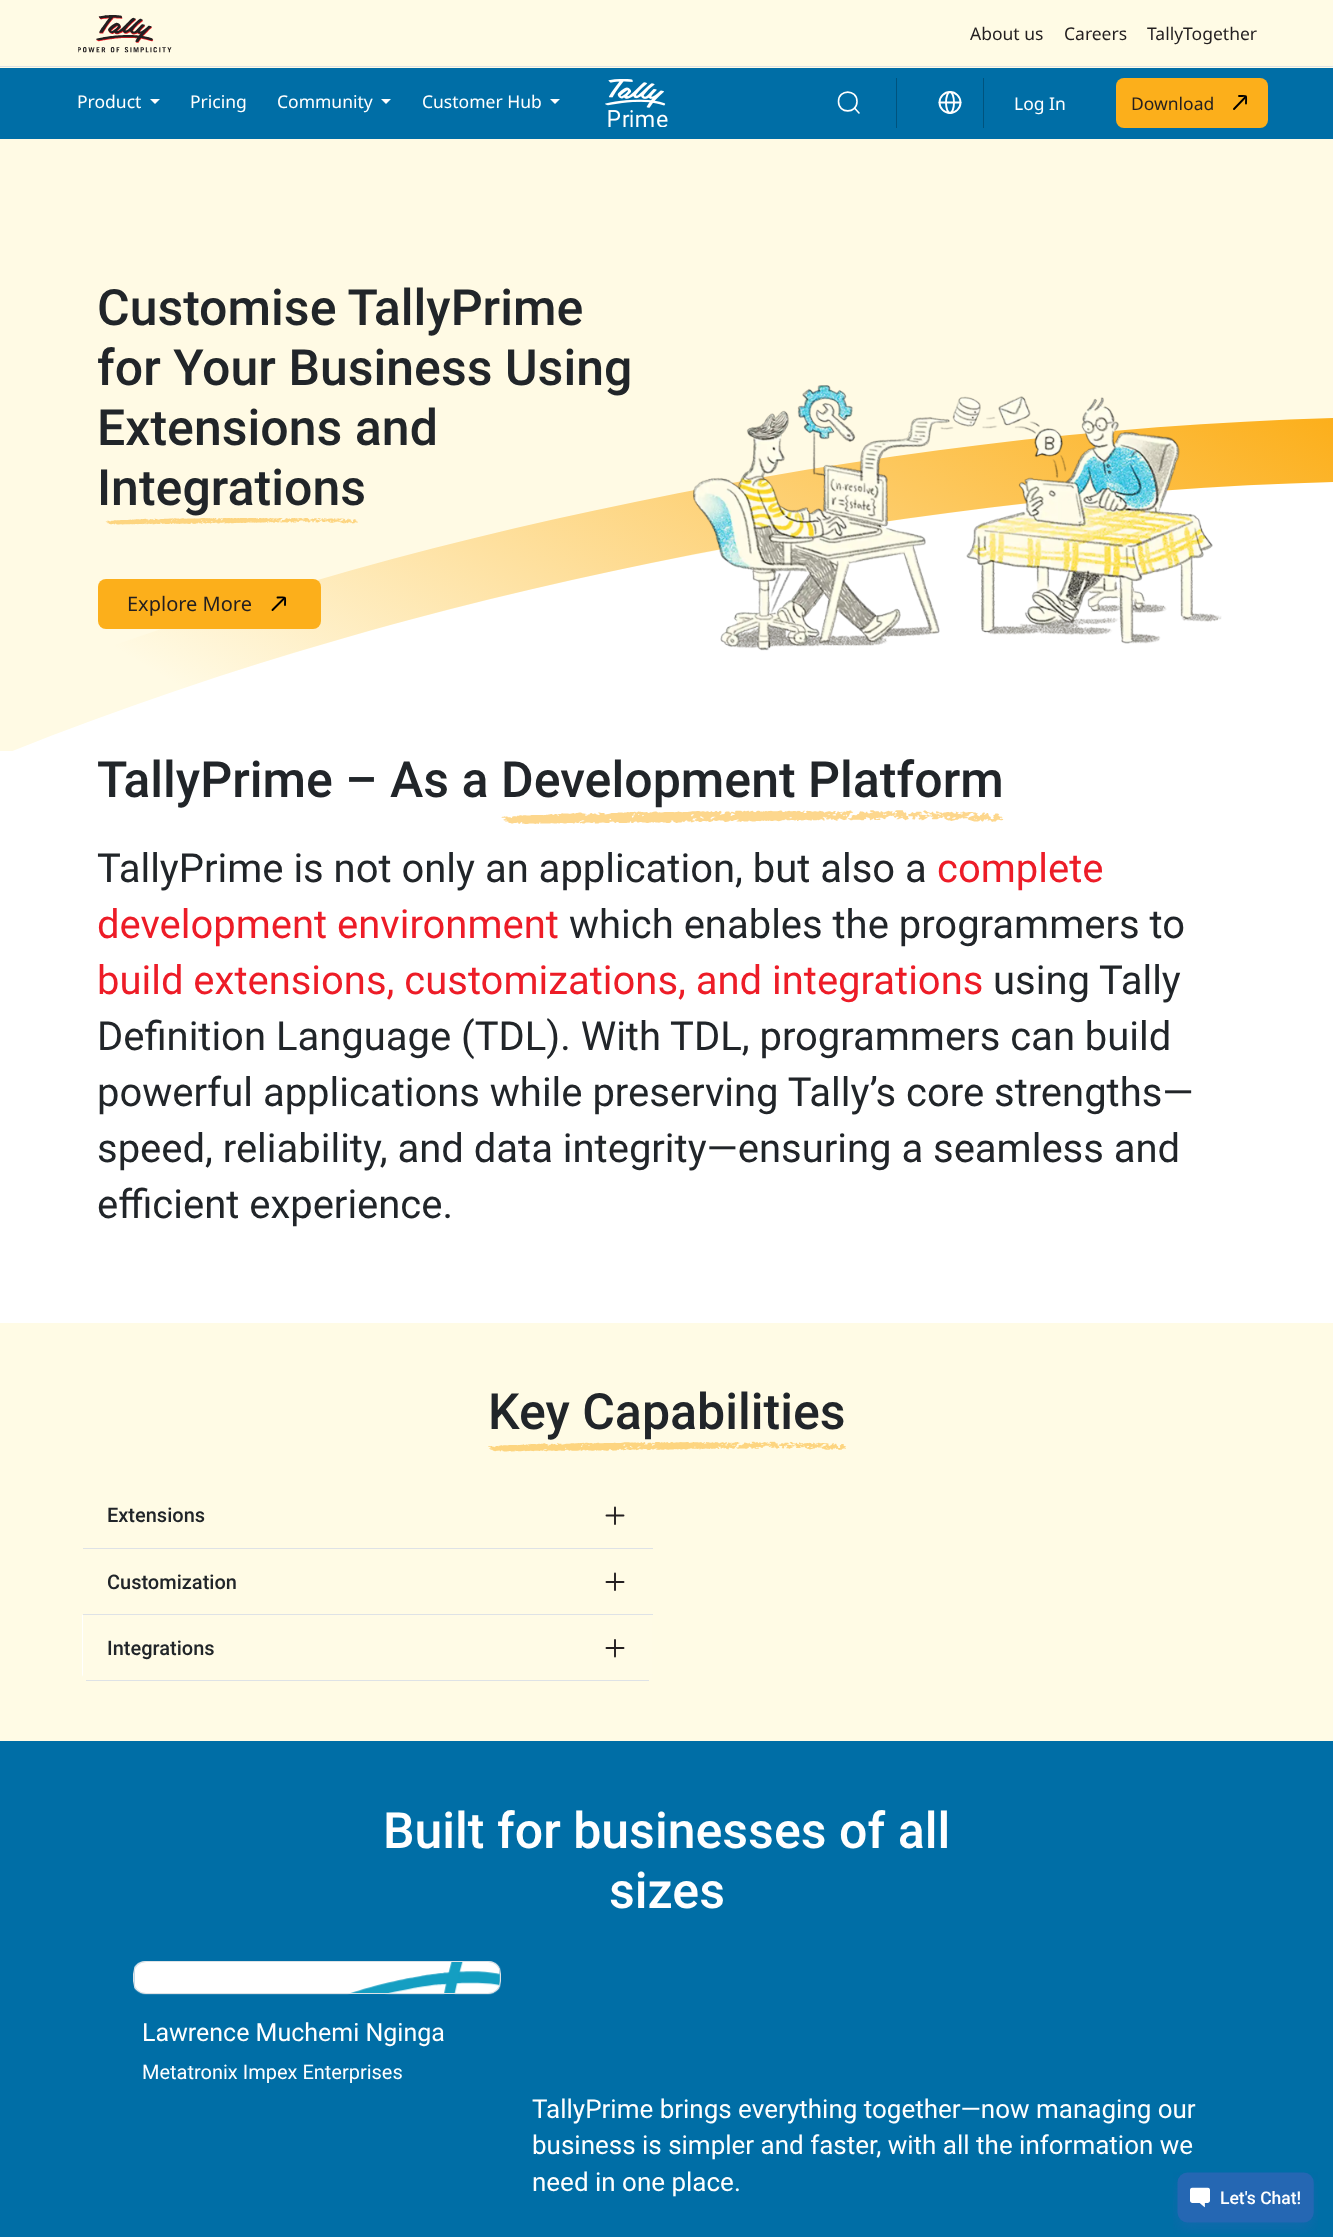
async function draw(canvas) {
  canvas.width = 1333;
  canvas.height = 2237;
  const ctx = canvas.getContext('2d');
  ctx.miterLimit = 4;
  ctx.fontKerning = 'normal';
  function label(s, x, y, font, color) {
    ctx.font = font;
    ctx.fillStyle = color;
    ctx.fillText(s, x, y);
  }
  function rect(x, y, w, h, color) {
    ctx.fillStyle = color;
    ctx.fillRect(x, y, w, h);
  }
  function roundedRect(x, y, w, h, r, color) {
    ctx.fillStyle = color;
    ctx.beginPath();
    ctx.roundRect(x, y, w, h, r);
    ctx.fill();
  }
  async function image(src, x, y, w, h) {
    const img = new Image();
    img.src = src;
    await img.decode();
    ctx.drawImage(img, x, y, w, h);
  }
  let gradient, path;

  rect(0, 0, 1333, 2237, '#fff');
  rect(0, 0, 1333, 68, '#fffbe5');
  rect(0, 66, 1333, 1, '#dee2e6');
  await image('assets/img1.png', 78, 15, 94, 38);
  label('About us', 970, 40, '17.5px Noto Sans', '#231f20');
  label('Careers', 1064, 40, '17.5px Noto Sans', '#231f20');
  label('TallyTogether', 1147, 40, '17.5px Noto Sans', '#231f20');
  rect(0, 68, 1333, 71, '#006ea6');
  label('Product', 77, 108, '17.5px Noto Sans', '#fff');
  path = new Path2D('M150 99H160L155 104Z');
  ctx.fill(path);
  label('Pricing', 190, 108, '17.5px Noto Sans', '#fff');
  label('Community', 277, 108, '17.5px Noto Sans', '#fff');
  path = new Path2D('M381 99H391L386 104Z');
  ctx.fill(path);
  label('Customer Hub', 422, 108, '17.5px Noto Sans', '#fff');
  path = new Path2D('M550 99H560L555 104Z');
  ctx.fill(path);
  await image('assets/img2.png', 605, 79, 63, 48);
  path = new Path2D('M854.5 108L859 113');
  ctx.strokeStyle = '#fff';
  ctx.lineWidth = 1.6;
  ctx.lineCap = 'round';
  ctx.lineJoin = 'round';
  ctx.stroke(path);
  path = new Path2D('M857 101.5C857 89 838.5 89 838.5 101.5C838.5 114 857 114 857 101.5Z');
  ctx.lineCap = 'butt';
  ctx.stroke(path);
  rect(896, 78, 1, 50, '#00537d');
  ctx.beginPath();
  ctx.arc(950, 102.5, 10.5, 0, 2 * Math.PI);
  ctx.lineWidth = 1.9;
  ctx.stroke();
  ctx.beginPath();
  ctx.ellipse(950, 102.5, 4, 10.5, 0, 0, 2 * Math.PI);
  ctx.stroke();
  path = new Path2D('M939.5 102.5H960.5');
  ctx.lineCap = 'round';
  ctx.stroke(path);
  rect(983, 78, 1, 50, '#00537d');
  label('Log In', 1014, 110, '17.5px Noto Sans', '#fff');
  roundedRect(1116, 78, 152, 50, 8, '#fcaf1b');
  label('Download', 1131, 110, '17.5px Noto Sans', '#231f20');
  path = new Path2D('M1245 97.5L1234 109');
  ctx.strokeStyle = '#000';
  ctx.lineJoin = 'miter';
  ctx.stroke(path);
  path = new Path2D('M1239 96C1248 96 1246 94.5 1246 103.5');
  ctx.lineJoin = 'round';
  ctx.stroke(path);
  ctx.save();
  ctx.beginPath();
  ctx.rect(0, 139, 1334, 612);
  ctx.clip();
  ctx.fillStyle = '#fffae4';
  path = new Path2D('M725 549C938 509 1144 487 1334 482V78H0V756C211 671 457 598 725 549Z');
  ctx.fill(path);
  ctx.restore();
  gradient = ctx.createLinearGradient(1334, 418, 904, 1127);
  gradient.addColorStop(0, '#fcaf1b');
  gradient.addColorStop(1, '#fcaf1b00');
  ctx.fillStyle = gradient;
  path = new Path2D('M20 748C224 667 436 607 651 563C876 517 1105 488 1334 482V418C1099 425 865 454 635 502C419 546 205 607 0 688V756Z');
  ctx.fill(path);
  label('Customise TallyPrime', 97, 325, '500 50px Roboto', '#212529');
  label('for Your Business Using', 97, 385, '500 50px Roboto', '#212529');
  label('Extensions and', 97, 445, '500 50px Roboto', '#212529');
  label('Integrations', 97, 505, '500 50px Roboto', '#212529');
  await image('assets/img3.png', 105, 518, 253, 7);
  roundedRect(98, 579, 223, 50, 8, '#fcaf1b');
  label('Explore More', 127, 611, '20px Noto Sans', '#231f20');
  path = new Path2D('M284 598.5L272.5 610');
  ctx.lineJoin = 'miter';
  ctx.stroke(path);
  path = new Path2D('M277.5 597.5C287 597.5 285 595.5 285 605');
  ctx.lineJoin = 'round';
  ctx.stroke(path);
  await image('assets/img4.png', 693, 385, 529, 266);
  label('TallyPrime – As a Development Platform', 97, 797, '500 50px Roboto', '#212529');
  await image('assets/img5.png', 501, 810, 503, 14);
  label('TallyPrime is not only an application, but also a', 97, 882, '40px Roboto', '#212529');
  label('complete', 937, 882, '40px Roboto', '#ed1c27');
  label('development environment', 97, 938, '40px Roboto', '#ed1c27');
  label('which enables the programmers to', 569, 938, '40px Roboto', '#212529');
  label('build extensions, customizations, and integrations', 97, 994, '40px Roboto', '#ed1c27');
  label('using', 993, 994, '40px Roboto', '#212529');
  label('Tally', 1099, 994, '40px Roboto', '#212529');
  label('Definition Language (TDL). With TDL, programmers can build', 97, 1050, '40px Roboto', '#212529');
  label('powerful applications while preserving Tally’s core strengths—', 97, 1106, '40px Roboto', '#212529');
  label('speed, reliability, and data integrity—ensuring a seamless and', 97, 1162, '40px Roboto', '#212529');
  label('efficient experience.', 97, 1218, '40px Roboto', '#212529');
  rect(0, 1323, 1333, 418, '#fffbe5');
  label('Key Capabilities', 488, 1429, '500 50px Roboto', '#212529');
  await image('assets/img6.png', 488, 1441, 358, 11);
  rect(83, 1548, 570, 1, '#dee2e6');
  label('Extensions', 107, 1522, '500 20px Roboto', '#212529');
  path = new Path2D('M615 1507.5V1524M606.5 1515.5H623.5');
  ctx.strokeStyle = '#231f20';
  ctx.stroke(path);
  rect(83, 1614, 570, 1, '#dee2e6');
  label('Customization', 107, 1589, '500 20px Roboto', '#212529');
  path = new Path2D('M615 1573.5V1590M606.5 1582H623.5');
  ctx.stroke(path);
  ctx.fillStyle = '#fff';
  path = new Path2D('M82 1615H652V1674C652 1677 649 1680 645 1680H90C86 1680 82 1677 82 1674Z');
  ctx.fill(path);
  rect(86, 1680, 563, 1, '#dee2e6');
  rect(83, 1615, 569, 65, '#fffbe6');
  label('Integrations', 107, 1655, '500 20px Roboto', '#212529');
  path = new Path2D('M615 1640V1656.5M606.5 1648H623.5');
  ctx.stroke(path);
  rect(0, 1741, 1333, 496, '#006ea6');
  label('Built for businesses of all', 383, 1848, '500 50px Roboto', '#fff');
  label('sizes', 609, 1908, '500 50px Roboto', '#fff');
  await image('assets/img7.png', 134, 1961, 367, 34);
  ctx.beginPath();
  ctx.roundRect(133.5, 1961.5, 367, 32, 12.5);
  ctx.strokeStyle = '#dee2e6';
  ctx.lineWidth = 1;
  ctx.lineJoin = 'miter';
  ctx.stroke();
  label('Lawrence Muchemi Nginga', 142, 2041, '25px Roboto', '#fff');
  label('Metatronix Impex Enterprises', 142, 2079, '20px Roboto', '#fff');
  label('TallyPrime brings everything together—now managing our', 532, 2118, '26px Roboto', '#fff');
  label('business is simpler and faster, with all the information we', 532, 2154, '26px Roboto', '#fff');
  label('need in one place.', 532, 2191, '26px Roboto', '#fff');
  await image('assets/img8.png', 1173, 2172, 145, 62);
}

draw(document.querySelector('canvas'));
